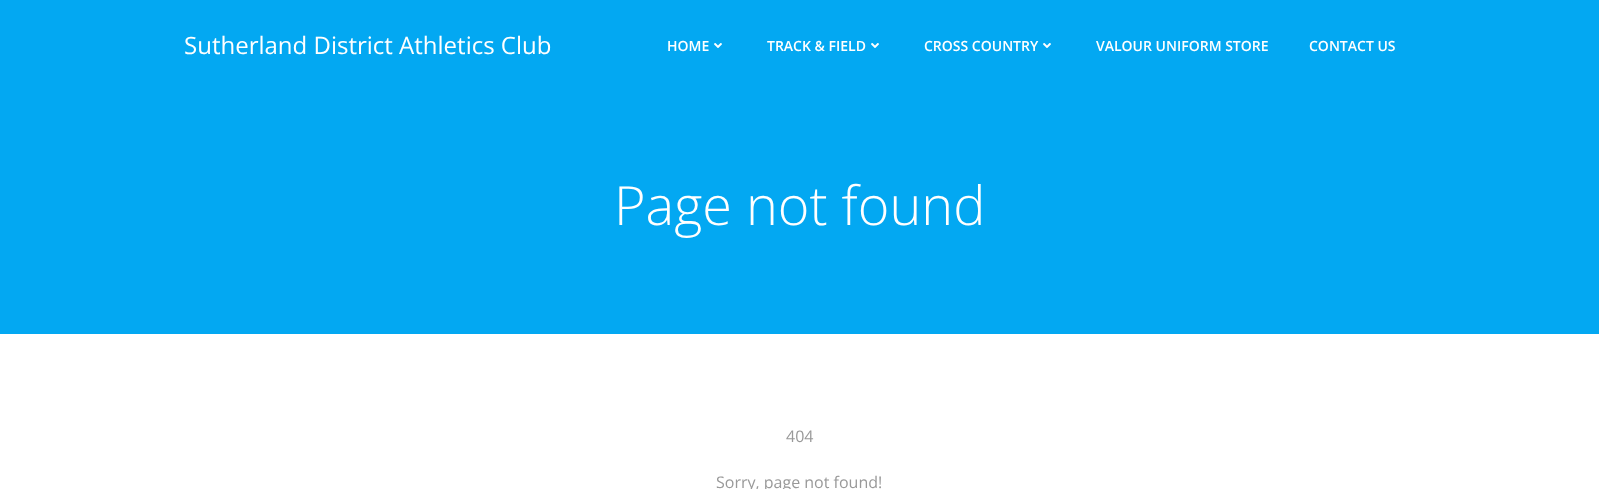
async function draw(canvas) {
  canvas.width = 1599;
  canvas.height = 489;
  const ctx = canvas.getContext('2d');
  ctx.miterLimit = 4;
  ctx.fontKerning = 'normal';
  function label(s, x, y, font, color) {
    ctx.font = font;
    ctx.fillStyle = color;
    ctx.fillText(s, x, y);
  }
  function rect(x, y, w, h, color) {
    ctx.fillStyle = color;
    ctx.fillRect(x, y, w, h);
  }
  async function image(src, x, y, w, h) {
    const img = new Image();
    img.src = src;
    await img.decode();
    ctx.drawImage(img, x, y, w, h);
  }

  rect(0, 0, 1599, 489, '#fff');
  rect(0, 0, 1599, 334, '#03a8f2');
  label('Sutherland District Athletics Club', 184, 54, '24px Open Sans', '#fff');
  label('HOME', 667, 51, '600 14px Open Sans', '#fff');
  await image('assets/img1.png', 714, 43, 8, 5);
  label('TRACK & FIELD', 767, 51, '600 14px Open Sans', '#fff');
  await image('assets/img1.png', 871, 43, 8, 5);
  label('CROSS COUNTRY', 924, 51, '600 14px Open Sans', '#fff');
  await image('assets/img1.png', 1043, 43, 8, 5);
  label('VALOUR UNIFORM STORE', 1096, 51, '600 14px Open Sans', '#fff');
  label('CONTACT US', 1309, 51, '600 14px Open Sans', '#fff');
  label('Page not found', 614, 225, '300 54px Open Sans', '#fff');
  label('404', 786, 442, '16px Open Sans', '#999');
  label('Sorry, page not found!', 716, 488, '16px Open Sans', '#999');
}

draw(document.querySelector('canvas'));
